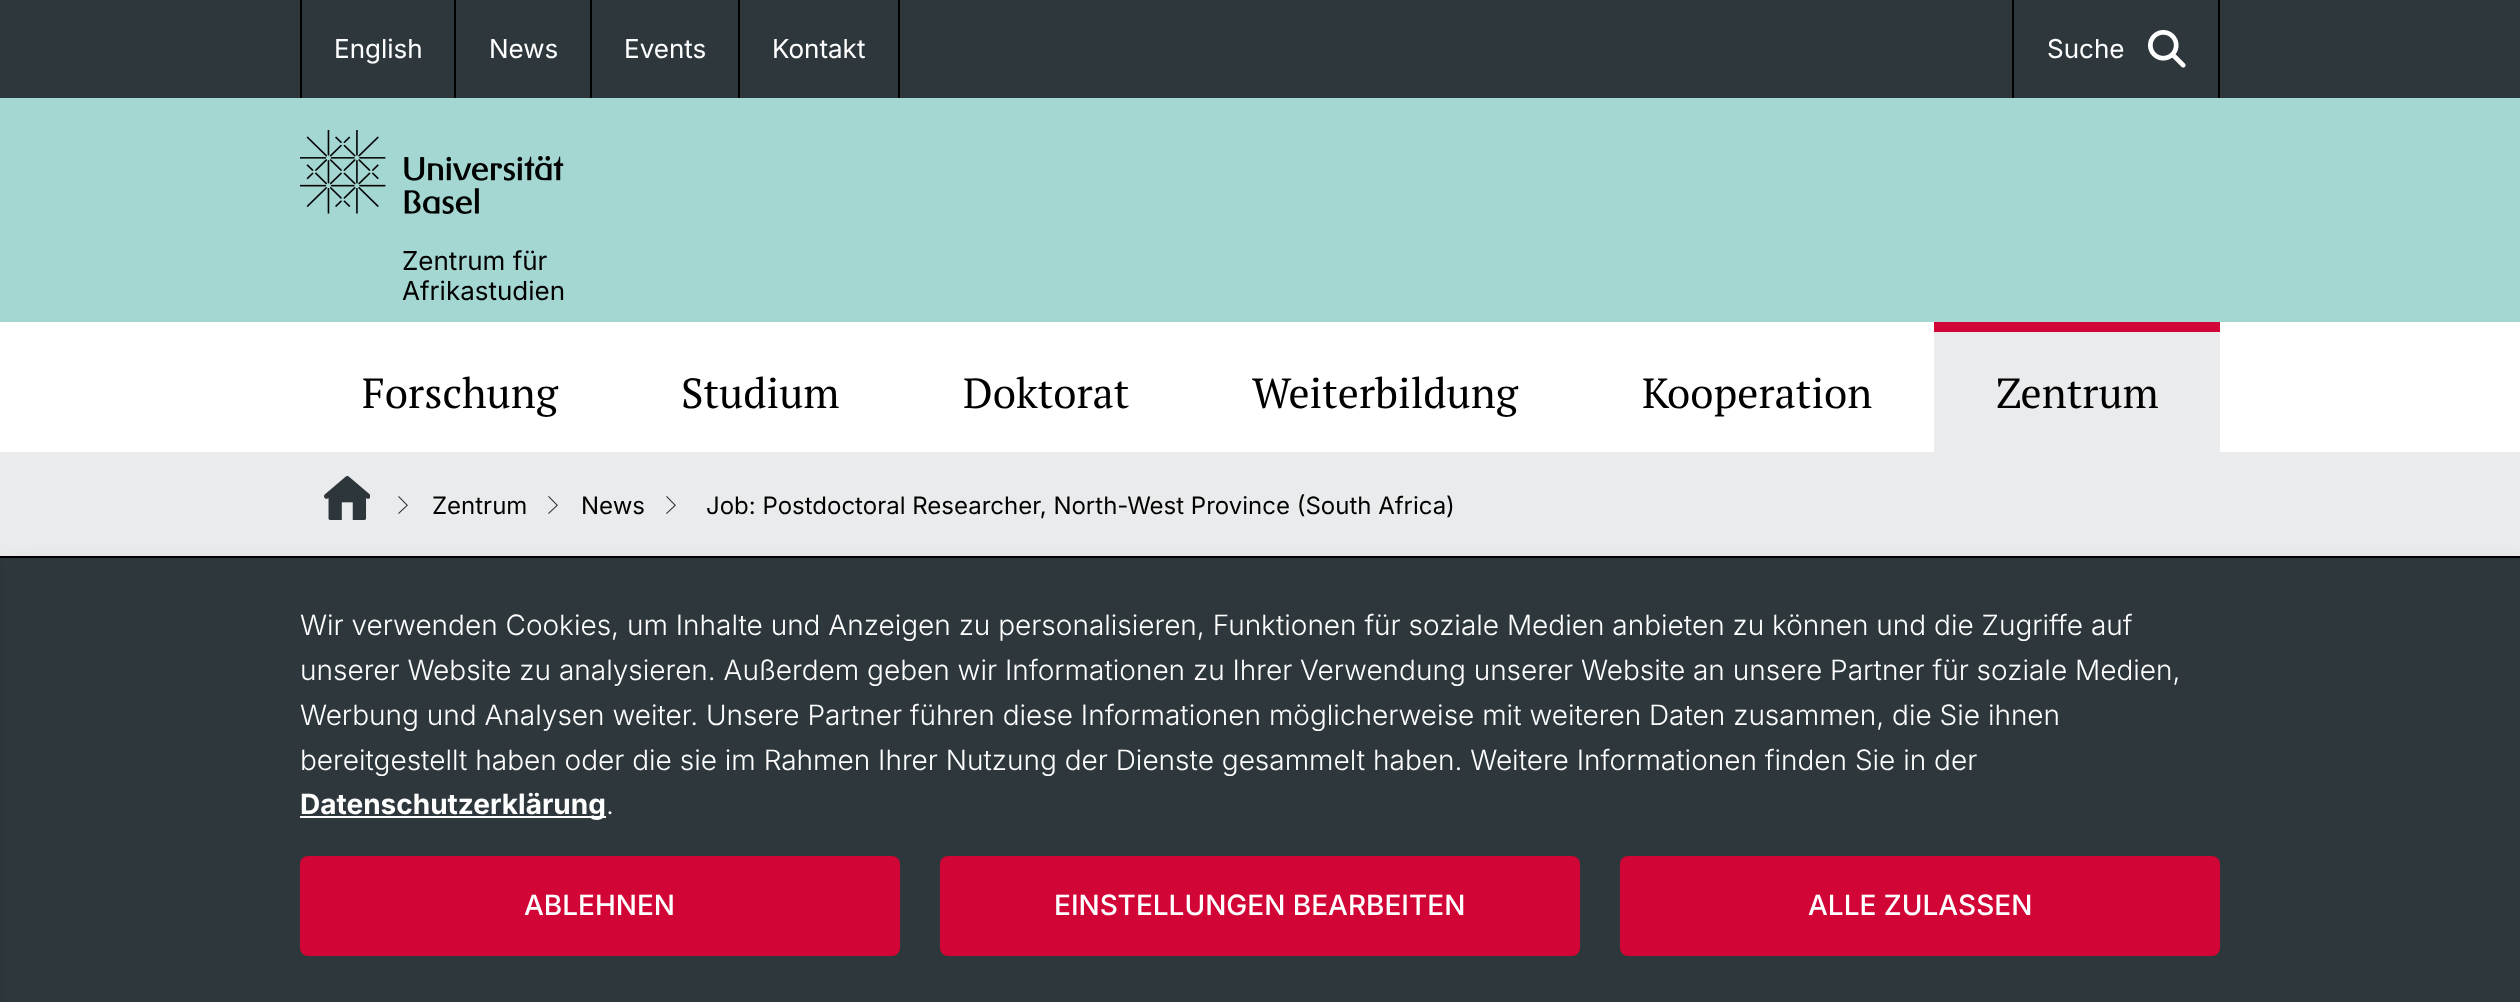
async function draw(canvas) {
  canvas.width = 2520;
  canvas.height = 1002;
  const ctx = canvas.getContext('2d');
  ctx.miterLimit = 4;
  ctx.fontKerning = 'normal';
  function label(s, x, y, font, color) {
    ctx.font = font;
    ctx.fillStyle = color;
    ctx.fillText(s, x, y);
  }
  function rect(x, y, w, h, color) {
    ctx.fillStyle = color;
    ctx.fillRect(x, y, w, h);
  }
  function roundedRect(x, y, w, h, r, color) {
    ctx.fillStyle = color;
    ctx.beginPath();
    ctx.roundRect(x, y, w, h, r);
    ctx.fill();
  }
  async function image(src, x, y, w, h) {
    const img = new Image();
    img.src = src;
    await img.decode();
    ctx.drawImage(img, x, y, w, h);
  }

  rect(0, 0, 2520, 1002, '#2d373c');
  rect(454, 0, 2, 98, '#000');
  rect(300, 0, 2, 98, '#000');
  label('English', 334, 58, '26px Inter', '#fff');
  rect(590, 0, 2, 98, '#000');
  label('News', 489, 58, '26px Inter', '#fff');
  rect(738, 0, 2, 98, '#000');
  label('Events', 624, 58, '26px Inter', '#fff');
  rect(898, 0, 2, 98, '#000');
  label('Kontakt', 772, 58, '26px Inter', '#fff');
  rect(2218, 0, 2, 98, '#000');
  rect(2012, 0, 2, 98, '#000');
  label('Suche', 2047, 58, '26px Inter', '#fff');
  await image('assets/img1.png', 2148, 30, 38, 38);
  rect(0, 98, 2520, 224, '#a5d7d2');
  await image('assets/img2.png', 300, 130, 264, 84);
  label('Zentrum für', 402, 270, '26px Inter', '#000');
  label('Afrikastudien', 402, 300, '26px Inter', '#000');
  rect(0, 322, 2520, 130, '#fff');
  label('Forschung', 362, 408, '42px PT Serif', '#000');
  label('Studium', 681, 408, '42px PT Serif', '#000');
  label('Doktorat', 963, 408, '42px PT Serif', '#000');
  label('Weiterbildung', 1252, 408, '42px PT Serif', '#000');
  label('Kooperation', 1642, 408, '42px PT Serif', '#000');
  rect(1934, 332, 286, 120, '#eaebec');
  rect(1934, 322, 286, 10, '#d20537');
  label('Zentrum', 1996, 408, '42px PT Serif', '#000');
  rect(0, 452, 2520, 104, '#eaebec');
  await image('assets/img3.png', 324, 476, 46, 44);
  await image('assets/img4.png', 398, 496, 10, 18);
  label('Zentrum', 432, 514, '24px Inter', '#000');
  await image('assets/img4.png', 548, 496, 10, 18);
  label('News', 581, 514, '24px Inter', '#000');
  await image('assets/img4.png', 666, 496, 10, 18);
  label('Job: Postdoctoral Researcher, North-West Province (South Africa)', 706, 514, '24px Inter', '#000');
  ctx.fillStyle = '#00000030';
  ctx.filter = 'blur(10px)';
  ctx.beginPath();
  ctx.rect(10, 566, 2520, 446);
  ctx.fill();
  ctx.filter = 'none';
  rect(3, 559, 2517, 443, '#2d373c');
  rect(0, 556, 2520, 2, '#000');
  label('Wir verwenden Cookies, um Inhalte und Anzeigen zu personalisieren, Funktionen für soziale Medien anbieten zu können und die Zugriffe auf', 300, 635, '300 28px Inter', '#fff');
  label('unserer Website zu analysieren. Außerdem geben wir Informationen zu Ihrer Verwendung unserer Website an unsere Partner für soziale Medien,', 300, 680, '300 28px Inter', '#fff');
  label('Werbung und Analysen weiter. Unsere Partner führen diese Informationen möglicherweise mit weiteren Daten zusammen, die Sie ihnen', 300, 725, '300 28px Inter', '#fff');
  label('bereitgestellt haben oder die sie im Rahmen Ihrer Nutzung der Dienste gesammelt haben. Weitere Informationen finden Sie in der', 300, 770, '300 28px Inter', '#fff');
  rect(300, 816, 306, 2, '#fff');
  label('Datenschutzerklärung', 300, 814, 'bold 28px Inter', '#fff');
  label('.', 606, 814, '300 28px Inter', '#fff');
  roundedRect(300, 856, 600, 100, 8, '#d20537');
  label('ABLEHNEN', 524, 915, '500 28px Inter', '#fff');
  roundedRect(1620, 856, 600, 100, 8, '#d20537');
  label('ALLE ZULASSEN', 1808, 915, '500 28px Inter', '#fff');
  roundedRect(940, 856, 640, 100, 8, '#d20537');
  label('EINSTELLUNGEN BEARBEITEN', 1054, 915, '500 28px Inter', '#fff');
}

draw(document.querySelector('canvas'));
